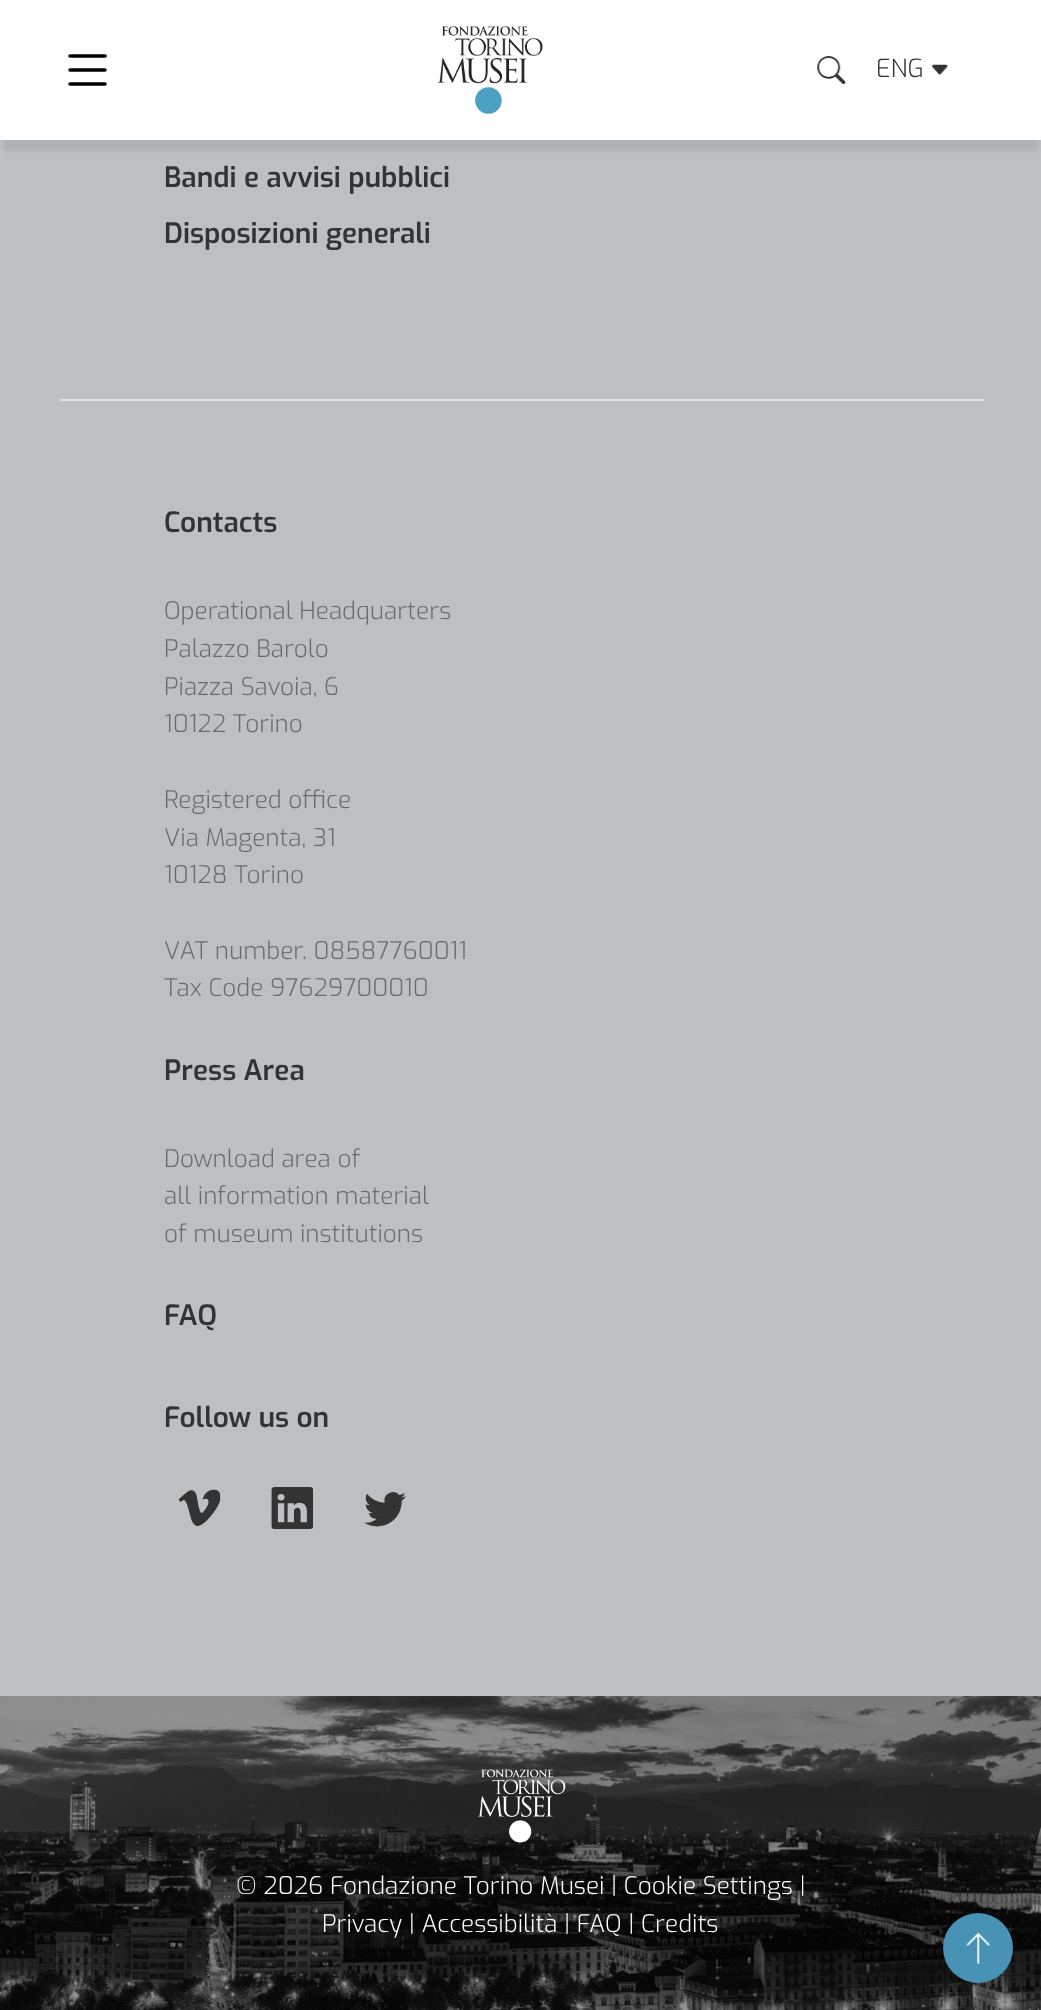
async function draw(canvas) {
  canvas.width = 1041;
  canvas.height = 2010;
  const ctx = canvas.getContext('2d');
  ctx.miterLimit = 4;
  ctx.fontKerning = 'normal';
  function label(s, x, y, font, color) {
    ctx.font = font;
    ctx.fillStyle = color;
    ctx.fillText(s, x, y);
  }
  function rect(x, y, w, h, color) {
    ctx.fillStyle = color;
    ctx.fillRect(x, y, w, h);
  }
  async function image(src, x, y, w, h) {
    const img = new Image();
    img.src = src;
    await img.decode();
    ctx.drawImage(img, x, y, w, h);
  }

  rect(0, 0, 1041, 2010, '#fff');
  rect(0, 140, 1041, 1556, '#bcc0c3');
  ctx.fillStyle = '#00000012';
  ctx.filter = 'blur(2px)';
  ctx.beginPath();
  ctx.rect(4, 18, 1034, 133);
  ctx.fill();
  ctx.filter = 'none';
  rect(2, 16, 1038, 124, '#fff');
  await image('assets/img1.png', 67, 54, 41, 32);
  await image('assets/img2.png', 437, 26, 106, 88);
  await image('assets/img3.png', 817, 56, 29, 28);
  label('ENG', 876, 77, '300 25px Exo', '#333');
  await image('assets/img4.png', 931, 64, 17, 11);
  label('Bandi e avvisi pubblici', 164, 187, '600 28px Exo', '#333');
  label('Disposizioni generali', 164, 243, '600 28px Exo', '#333');
  rect(60, 399, 924, 2, '#e2e2e2');
  label('Contacts', 164, 532, '600 28px Exo', '#333');
  label('Operational Headquarters', 164, 619, '300 24.25px Exo', '#6b6b6b');
  label('Palazzo Barolo', 164, 657, '300 24.25px Exo', '#6b6b6b');
  label('Piazza Savoia, 6', 164, 695, '300 24.25px Exo', '#6b6b6b');
  label('10122 Torino', 164, 732, '300 24.25px Exo', '#6b6b6b');
  label('Registered office', 164, 808, '300 24.25px Exo', '#6b6b6b');
  label('Via Magenta, 31', 164, 846, '300 24.25px Exo', '#6b6b6b');
  label('10128 Torino', 164, 883, '300 24.25px Exo', '#6b6b6b');
  label('VAT number. 08587760011', 164, 959, '300 24.25px Exo', '#6b6b6b');
  label('Tax Code 97629700010', 164, 996, '300 24.25px Exo', '#6b6b6b');
  label('Press Area', 164, 1080, '600 28px Exo', '#333');
  label('Download area of', 164, 1167, '300 24.25px Exo', '#6b6b6b');
  label('all information material', 164, 1204, '300 24.25px Exo', '#6b6b6b');
  label('of museum institutions', 164, 1242, '300 24.25px Exo', '#6b6b6b');
  label('FAQ', 164, 1325, '600 28px Exo', '#333');
  label('Follow us on', 164, 1427, '600 28px Exo', '#333');
  await image('assets/img5.png', 178, 1489, 43, 37);
  await image('assets/img6.png', 271, 1487, 42, 42);
  await image('assets/img7.png', 364, 1492, 42, 35);
  await image('assets/img8.png', 0, 1696, 1041, 314);
  await image('assets/img9.png', 478, 1769, 88, 74);
  label('© 2026 Fondazione Torino Musei | Cookie Settings |', 236, 1894, '300 24.25px Exo', '#fff');
  label('Privacy | Accessibilità | FAQ | Credits', 322, 1932, '300 24.25px Exo', '#fff');
  ctx.fillStyle = '#4892b5';
  ctx.beginPath();
  ctx.arc(978, 1948, 35, 0, 2 * Math.PI);
  ctx.fill();
  await image('assets/img10.png', 966, 1932, 25, 32);
}

draw(document.querySelector('canvas'));
